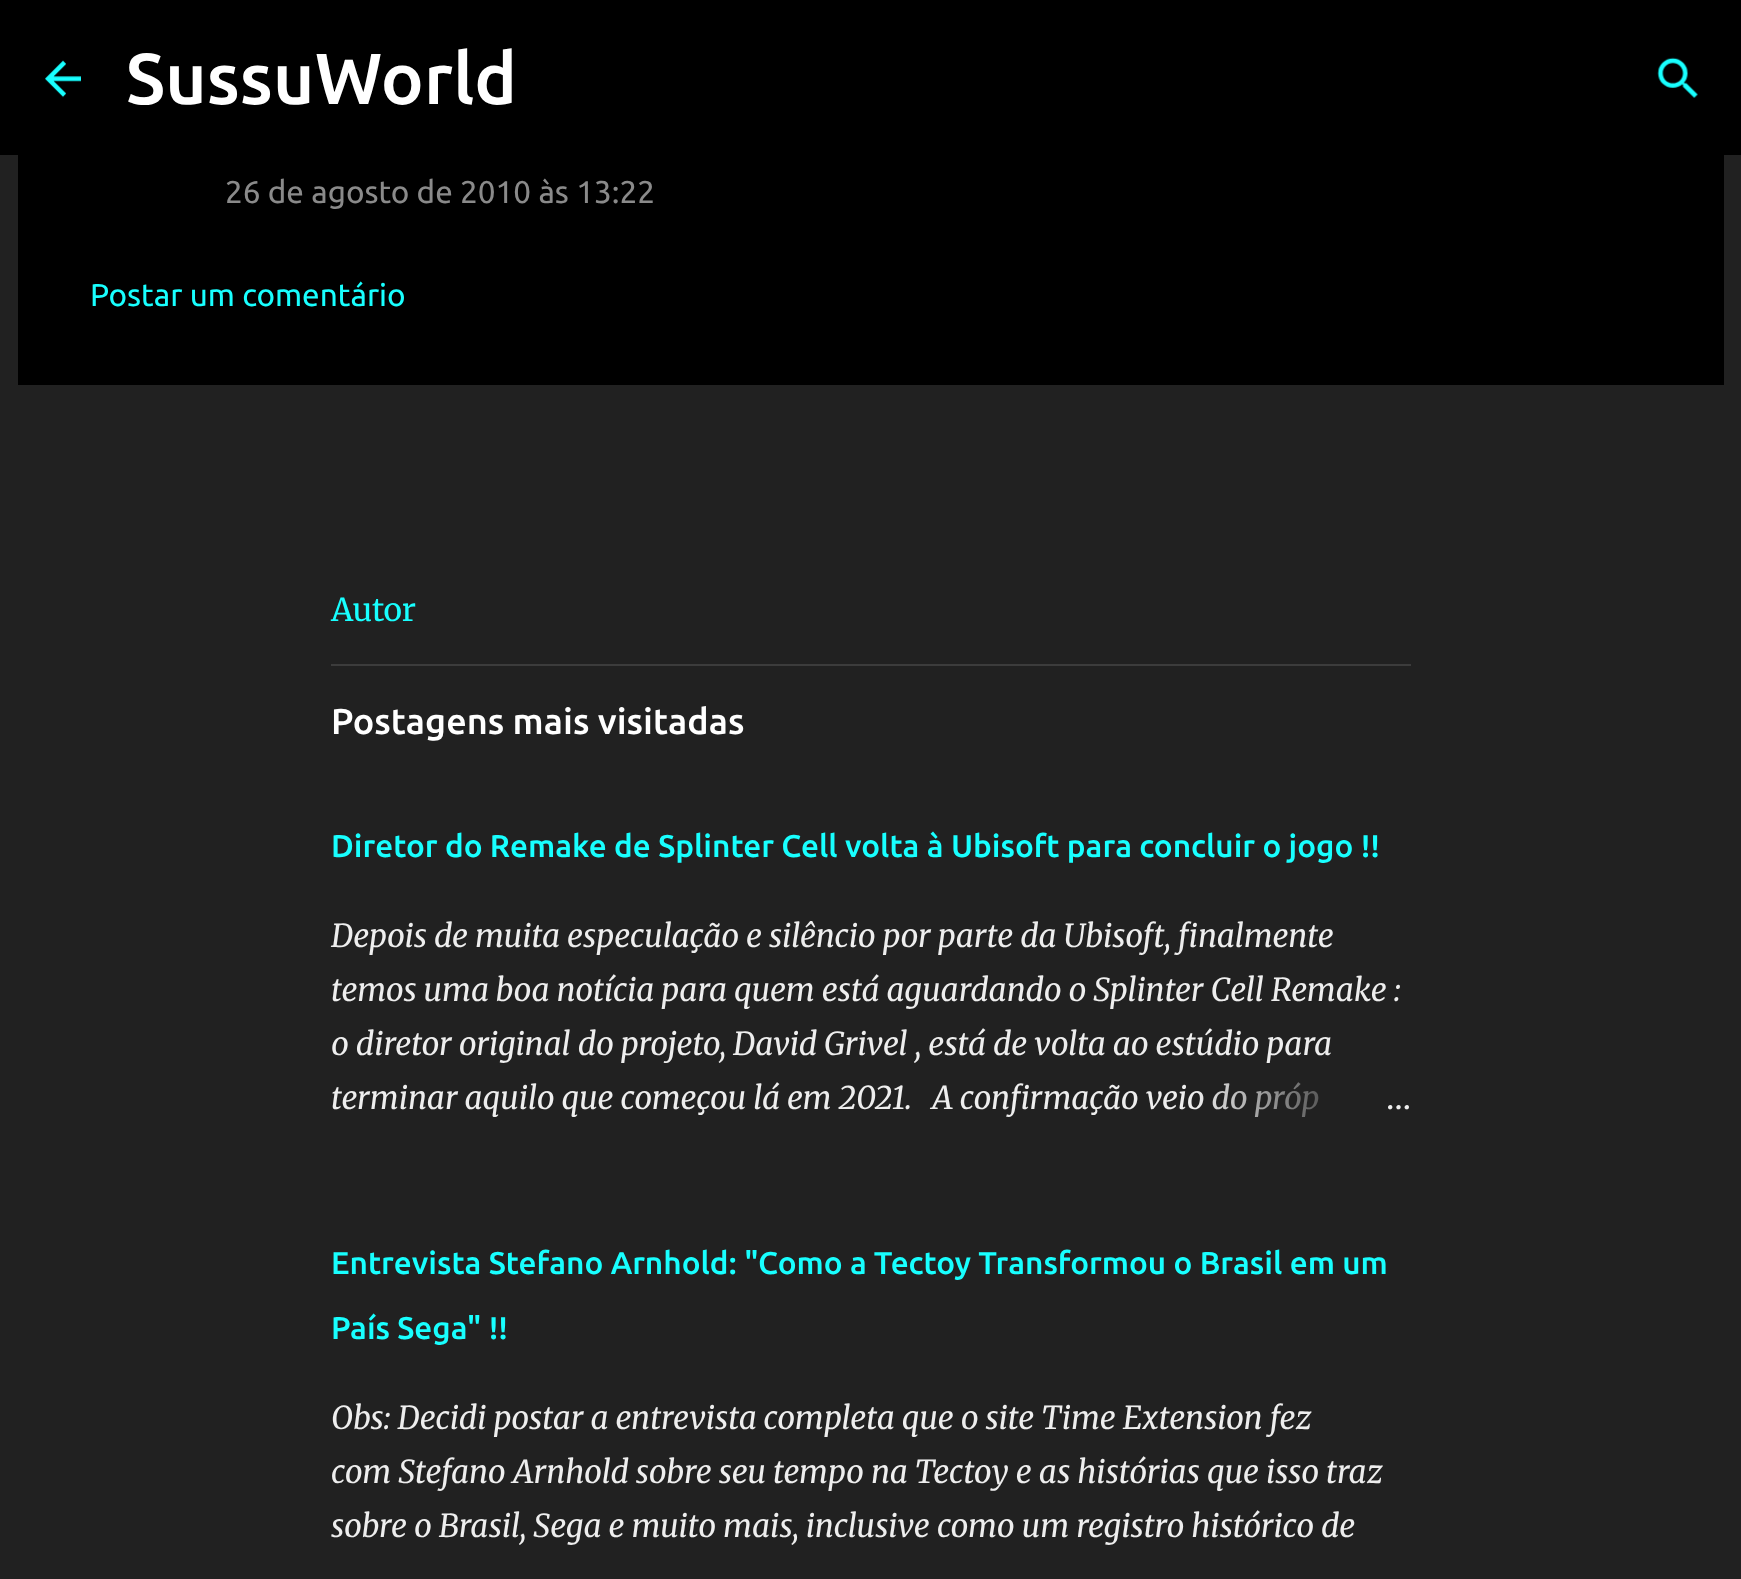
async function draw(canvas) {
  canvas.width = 1741;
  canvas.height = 1579;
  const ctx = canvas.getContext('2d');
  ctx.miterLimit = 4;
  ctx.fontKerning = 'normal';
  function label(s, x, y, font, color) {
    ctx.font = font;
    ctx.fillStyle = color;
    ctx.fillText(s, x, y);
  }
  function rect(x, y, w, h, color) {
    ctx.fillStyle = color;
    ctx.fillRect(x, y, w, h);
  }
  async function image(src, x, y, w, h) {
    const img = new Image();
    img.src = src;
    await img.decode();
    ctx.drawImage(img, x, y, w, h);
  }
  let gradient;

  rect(0, 0, 1741, 1579, '#212121');
  rect(0, 0, 1741, 155, '#000');
  await image('assets/img1.png', 45, 60, 36, 38);
  label('SussuWorld', 126, 104, '500 72px Ubuntu', '#fff');
  await image('assets/img2.png', 1657, 57, 41, 41);
  rect(18, 155, 1706, 230, '#000');
  label('26 de agosto de 2010 às 13:22', 225, 203, '31.5px Ubuntu', '#8a8a8a');
  label('Postar um comentário', 90, 306, '31.5px Ubuntu', '#18ffff');
  label('Autor', 331, 621, '31.5px Merriweather', '#18ffff');
  rect(331, 664, 1080, 2, '#3c3c3c');
  label('Postagens mais visitadas', 331, 734, '500 36px Ubuntu', '#fff');
  label('Diretor do Remake de Splinter Cell volta à Ubisoft para concluir o jogo !!', 331, 857, '500 31.5px Ubuntu', '#18ffff');
  label('Depois de muita especulação e silêncio por parte da Ubisoft, finalmente', 331, 947, 'italic 31.5px Merriweather', '#eee');
  label('temos uma boa notícia para quem está aguardando o Splinter Cell Remake :', 331, 1001, 'italic 31.5px Merriweather', '#eee');
  label('o diretor original do projeto, David Grivel , está de volta ao estúdio para', 331, 1055, 'italic 31.5px Merriweather', '#eee');
  label('terminar aquilo que começou lá em 2021.', 331, 1109, 'italic 31.5px Merriweather', '#eee');
  label('A confirmação veio do próp', 932, 1109, 'italic 31.5px Merriweather', '#eee');
  gradient = ctx.createLinearGradient(1411, 1098, 1195, 1098);
  gradient.addColorStop(0, '#212121');
  gradient.addColorStop(0.2, '#212121');
  gradient.addColorStop(1, '#21212100');
  ctx.fillStyle = gradient;
  ctx.fillRect(1199, 1082, 120, 35);
  label('…', 1386, 1109, '31.5px Merriweather', '#eee');
  label('Entrevista Stefano Arnhold: "Como a Tectoy Transformou o Brasil em um', 331, 1274, '500 31.5px Ubuntu', '#18ffff');
  label('País Sega" !!', 331, 1339, '500 31.5px Ubuntu', '#18ffff');
  label('Obs: Decidi postar a entrevista completa que o site Time Extension fez', 331, 1429, 'italic 31.5px Merriweather', '#eee');
  label('com Stefano Arnhold sobre seu tempo na Tectoy e as histórias que isso traz', 331, 1483, 'italic 31.5px Merriweather', '#eee');
  label('sobre o Brasil, Sega e muito mais, inclusive como um registro histórico de', 331, 1537, 'italic 31.5px Merriweather', '#eee');
}

draw(document.querySelector('canvas'));
